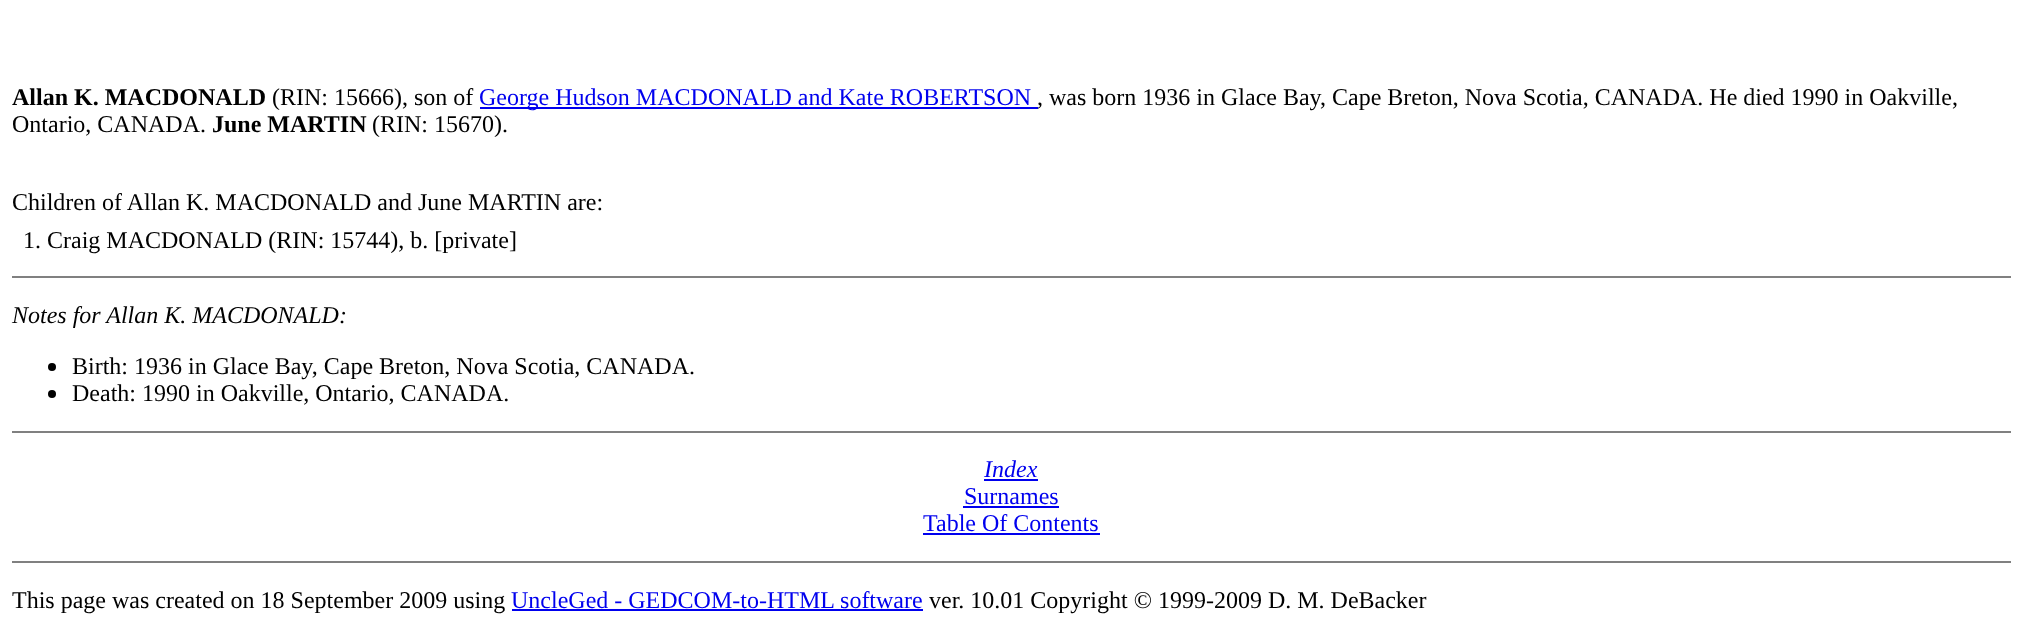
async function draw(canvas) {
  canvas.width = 2022;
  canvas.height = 632;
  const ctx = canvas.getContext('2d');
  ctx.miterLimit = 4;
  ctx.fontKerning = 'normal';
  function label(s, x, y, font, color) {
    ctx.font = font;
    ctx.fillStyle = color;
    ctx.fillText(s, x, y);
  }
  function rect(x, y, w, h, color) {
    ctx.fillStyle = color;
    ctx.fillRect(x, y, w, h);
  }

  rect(0, 0, 2022, 632, '#fff');
  label('Allan K. MACDONALD', 12, 105, 'bold 24px Liberation Serif', '#000');
  label('(RIN: 15666), son of', 272, 105, '24px Liberation Serif', '#000');
  rect(480, 107, 558, 2, '#00e');
  label('George Hudson MACDONALD and Kate ROBERTSON', 479, 105, '24px Liberation Serif', '#00e');
  label(', was born 1936 in Glace Bay, Cape Breton, Nova Scotia, CANADA. He died 1990 in Oakville,', 1037, 105, '24px Liberation Serif', '#000');
  label('Ontario, CANADA.', 12, 132, '24px Liberation Serif', '#000');
  label('June MARTIN', 212, 132, 'bold 24px Liberation Serif', '#000');
  label('(RIN: 15670).', 372, 132, '24px Liberation Serif', '#000');
  label('Children of Allan K. MACDONALD and June MARTIN are:', 12, 210, '24px Liberation Serif', '#000');
  label('1. Craig MACDONALD (RIN: 15744), b. [private]', 23, 248, '24px Liberation Serif', '#000');
  rect(12, 276, 1999, 2, '#808080');
  label('Notes for Allan K. MACDONALD:', 12, 323, 'italic 24px Liberation Serif', '#000');
  ctx.beginPath();
  ctx.arc(52, 367, 4, 0, 2 * Math.PI);
  ctx.fill();
  label('Birth: 1936 in Glace Bay, Cape Breton, Nova Scotia, CANADA.', 72, 374, '24px Liberation Serif', '#000');
  ctx.beginPath();
  ctx.arc(52, 394, 4, 0, 2 * Math.PI);
  ctx.fill();
  label('Death: 1990 in Oakville, Ontario, CANADA.', 72, 401, '24px Liberation Serif', '#000');
  rect(12, 431, 1999, 2, '#808080');
  label('Index', 984, 477, 'italic 24px Liberation Serif', '#00e');
  rect(984, 479, 54, 2, '#00e');
  label('Surnames', 964, 504, '24px Liberation Serif', '#00e');
  rect(963, 506, 96, 2, '#00e');
  label('Table Of Contents', 923, 531, '24px Liberation Serif', '#00e');
  rect(923, 533, 177, 2, '#00e');
  rect(12, 561, 1999, 2, '#808080');
  label('This page was created on 18 September 2009 using', 12, 608, '24px Liberation Serif', '#000');
  label('UncleGed - GEDCOM-to-HTML software', 511, 608, '24px Liberation Serif', '#00e');
  rect(512, 609, 411, 2, '#00e');
  label('ver. 10.01 Copyright © 1999-2009 D. M. DeBacker', 929, 608, '24px Liberation Serif', '#000');
}

draw(document.querySelector('canvas'));
